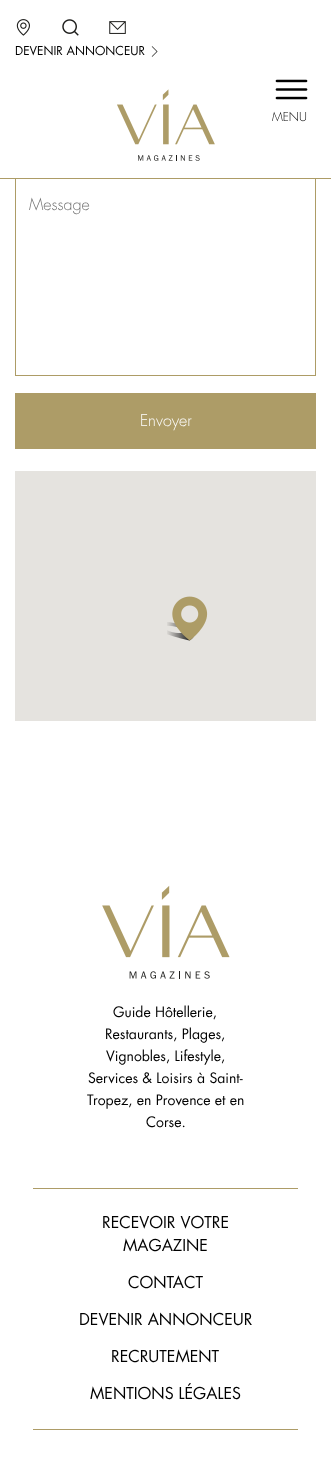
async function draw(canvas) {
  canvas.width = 331;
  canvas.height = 1460;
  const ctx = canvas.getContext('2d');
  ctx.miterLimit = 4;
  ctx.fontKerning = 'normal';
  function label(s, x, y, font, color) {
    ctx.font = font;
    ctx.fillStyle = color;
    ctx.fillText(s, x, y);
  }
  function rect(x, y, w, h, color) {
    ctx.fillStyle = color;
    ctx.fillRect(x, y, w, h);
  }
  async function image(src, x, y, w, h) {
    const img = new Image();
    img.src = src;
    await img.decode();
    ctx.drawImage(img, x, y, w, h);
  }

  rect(0, 0, 331, 1460, '#fff');
  ctx.strokeStyle = '#ad9c66';
  ctx.strokeRect(15.5, 173.5, 300, 202);
  rect(15, 173, 301, 5, '#fff');
  rect(0, 178, 331, 1, '#ad9c66');
  await image('assets/img1.png', 16, 19, 14, 17);
  await image('assets/img2.png', 62, 19, 17, 17);
  await image('assets/img3.png', 109, 21, 17, 13);
  label('DEVENIR ANNONCEUR', 15, 55, '12px Futura', '#000');
  await image('assets/img4.png', 151, 46, 7, 11);
  await image('assets/img5.png', 117, 89, 98, 72);
  await image('assets/img6.png', 275, 79, 33, 21);
  label('MENU', 272, 121, '300 12px Futura', '#000');
  label('Message', 29, 210, '300 16px Futura', '#757575');
  rect(15, 393, 301, 56, '#ad9c67');
  label('Envoyer', 140, 426, '300 16px Futura', '#fff');
  rect(15, 471, 301, 250, '#e5e3df');
  await image('assets/img7.png', 167, 596, 41, 45);
  await image('assets/img8.png', 102, 885, 128, 94);
  label('Guide Hôtellerie,', 113, 1017, '14px Futura', '#000');
  label('Restaurants, Plages,', 105, 1039, '14px Futura', '#000');
  label('Vignobles, Lifestyle,', 106, 1061, '14px Futura', '#000');
  label('Services & Loisirs à Saint-', 88, 1083, '14px Futura', '#000');
  label('Tropez, en Provence et en', 87, 1105, '14px Futura', '#000');
  label('Corse.', 146, 1127, '14px Futura', '#000');
  rect(33, 1188, 265, 1, '#ad9c67');
  rect(33, 1429, 265, 1, '#ad9c67');
  label('RECEVOIR VOTRE', 102, 1228, '16px Futura', '#000');
  label('MAGAZINE', 123, 1251, '16px Futura', '#000');
  label('CONTACT', 128, 1288, '16px Futura', '#000');
  label('DEVENIR ANNONCEUR', 79, 1325, '16px Futura', '#000');
  label('RECRUTEMENT', 111, 1362, '16px Futura', '#000');
  label('MENTIONS LÉGALES', 90, 1399, '16px Futura', '#000');
}

draw(document.querySelector('canvas'));
